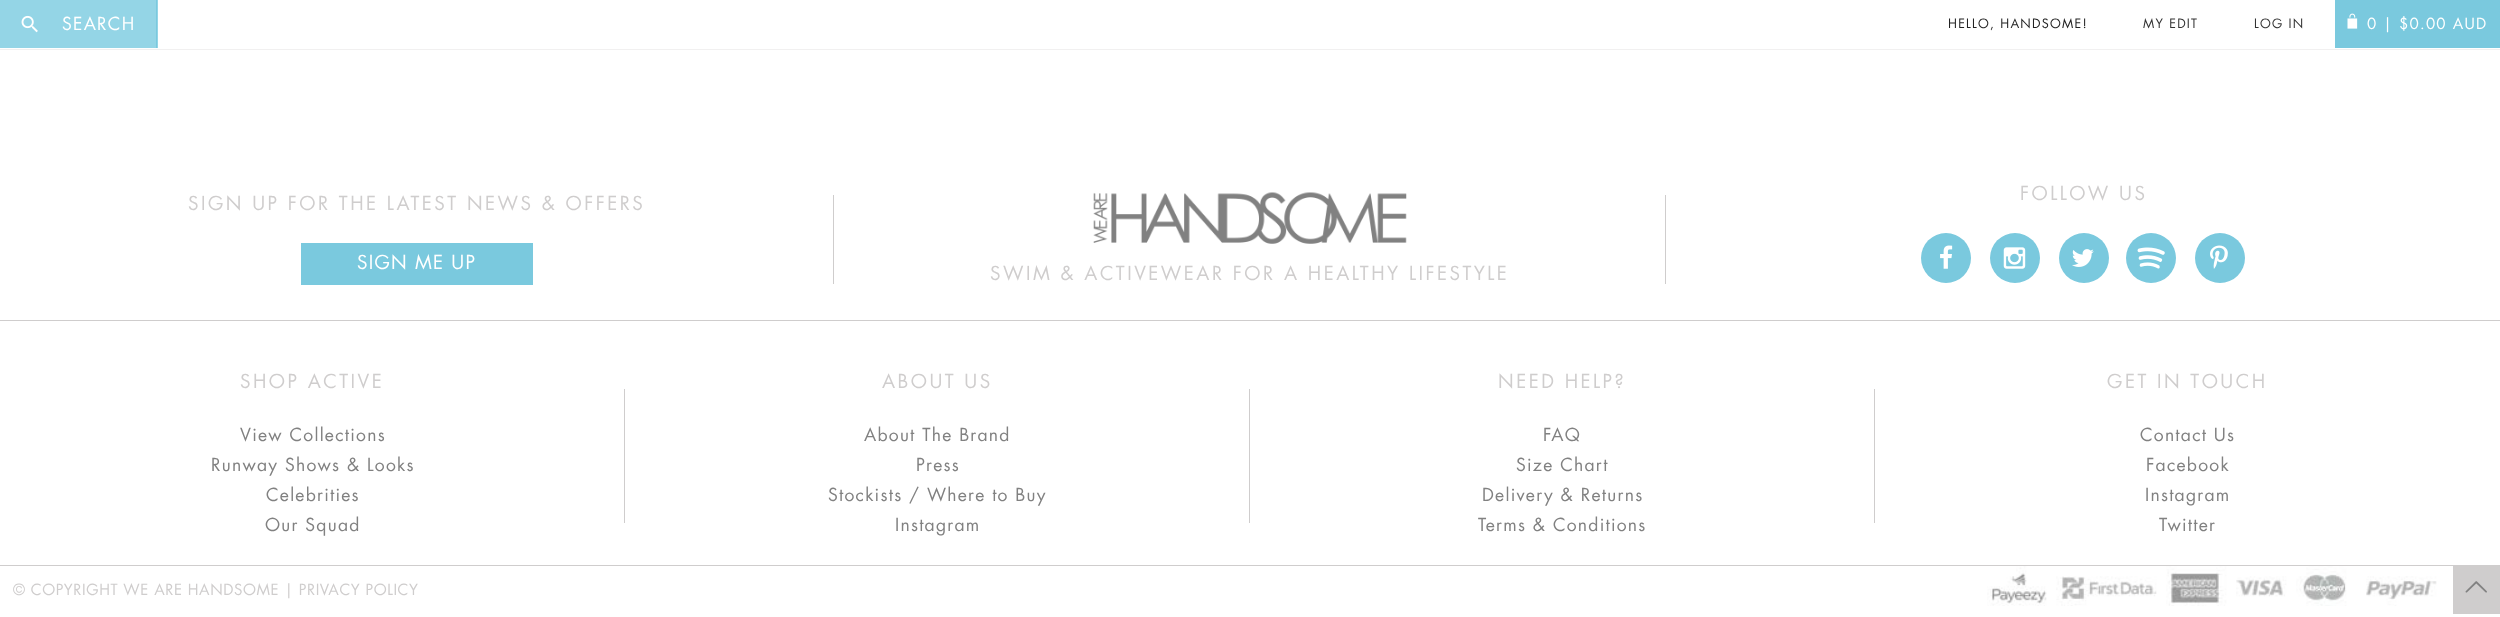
async function draw(canvas) {
  canvas.width = 2500;
  canvas.height = 617;
  const ctx = canvas.getContext('2d');
  ctx.miterLimit = 4;
  ctx.fontKerning = 'normal';
  function label(s, x, y, font, color) {
    ctx.font = font;
    ctx.fillStyle = color;
    ctx.fillText(s, x, y);
  }
  function rect(x, y, w, h, color) {
    ctx.fillStyle = color;
    ctx.fillRect(x, y, w, h);
  }
  async function image(src, x, y, w, h) {
    const img = new Image();
    img.src = src;
    await img.decode();
    ctx.drawImage(img, x, y, w, h);
  }

  rect(0, 0, 2500, 617, '#fff');
  rect(0, 49, 2500, 1, '#f1f0f0');
  rect(0, 0, 158, 48, '#94d5e6');
  rect(156, 0, 1, 48, '#7ac9de');
  await image('assets/img1.png', 21, 15, 17, 18);
  ctx.letterSpacing = '1.25px';
  label('SEARCH', 62, 30, '17.5px Futura', '#fff');
  label('HELLO, HANDSOME!', 1948, 28, '12.5px Futura', '#222');
  label('MY EDIT', 2143, 28, '12.5px Futura', '#333');
  label('LOG IN', 2254, 28, '12.5px Futura', '#333');
  rect(2335, 0, 165, 48, '#7ac9de');
  await image('assets/img2.png', 2347, 13, 11, 16);
  label('0 | $0.00 AUD', 2367, 29, '15px Futura', '#fff');
  rect(0, 320, 2500, 1, '#cfcdcd');
  ctx.letterSpacing = '2.5px';
  label('FOLLOW US', 2020, 200, '18.75px Futura', '#cfcdcd');
  ctx.fillStyle = '#7ac9de';
  ctx.beginPath();
  ctx.arc(1946, 258, 25, 0, 2 * Math.PI);
  ctx.fill();
  await image('assets/img3.png', 1940, 245, 13, 24);
  ctx.beginPath();
  ctx.arc(2015, 258, 25, 0, 2 * Math.PI);
  ctx.fill();
  await image('assets/img4.png', 2003, 247, 23, 22);
  ctx.beginPath();
  ctx.arc(2084, 258, 25, 0, 2 * Math.PI);
  ctx.fill();
  await image('assets/img5.png', 2072, 249, 22, 18);
  ctx.beginPath();
  ctx.arc(2151, 258, 25, 0, 2 * Math.PI);
  ctx.fill();
  await image('assets/img6.png', 2137, 247, 28, 22);
  ctx.beginPath();
  ctx.arc(2220, 258, 25, 0, 2 * Math.PI);
  ctx.fill();
  await image('assets/img7.png', 2210, 245, 18, 24);
  label('SIGN UP FOR THE LATEST NEWS & OFFERS', 188, 210, '18.75px Futura', '#cfcdcd');
  rect(833, 195, 1, 89, '#cfcdcd');
  rect(301, 243, 232, 42, '#7ac9de');
  ctx.letterSpacing = '1.25px';
  label('SIGN ME UP', 357, 269, '18.75px Futura', '#fff');
  await image('assets/img8.png', 1093, 192, 314, 52);
  rect(1665, 195, 1, 89, '#cfcdcd');
  ctx.letterSpacing = '2.5px';
  label('SWIM & ACTIVEWEAR FOR A HEALTHY LIFESTYLE', 990, 280, '18.75px Futura', '#cfcdcd');
  rect(0, 565, 2500, 1, '#cfcdcd');
  label('SHOP ACTIVE', 240, 388, '18.75px Futura', '#cfcdcd');
  ctx.letterSpacing = '1.25px';
  label('View Collections', 240, 441, '17.5px Futura', '#818181');
  label('Runway Shows & Looks', 211, 471, '17.5px Futura', '#818181');
  label('Celebrities', 266, 501, '17.5px Futura', '#818181');
  label('Our Squad', 265, 531, '17.5px Futura', '#818181');
  rect(624, 389, 1, 134, '#cfcdcd');
  ctx.letterSpacing = '2.5px';
  label('ABOUT US', 882, 388, '18.75px Futura', '#cfcdcd');
  ctx.letterSpacing = '1.25px';
  label('About The Brand', 864, 441, '17.5px Futura', '#818181');
  label('Press', 916, 471, '17.5px Futura', '#818181');
  label('Stockists / Where to Buy', 828, 501, '17.5px Futura', '#818181');
  label('Instagram', 895, 531, '17.5px Futura', '#818181');
  rect(1249, 389, 1, 134, '#cfcdcd');
  ctx.letterSpacing = '2.5px';
  label('NEED HELP?', 1498, 388, '18.75px Futura', '#cfcdcd');
  ctx.letterSpacing = '1.25px';
  label('FAQ', 1543, 441, '17.5px Futura', '#818181');
  label('Size Chart', 1516, 471, '17.5px Futura', '#818181');
  label('Delivery & Returns', 1482, 501, '17.5px Futura', '#818181');
  label('Terms & Conditions', 1478, 531, '17.5px Futura', '#818181');
  rect(1874, 389, 1, 134, '#cfcdcd');
  ctx.letterSpacing = '2.5px';
  label('GET IN TOUCH', 2107, 388, '18.75px Futura', '#cfcdcd');
  ctx.letterSpacing = '1.25px';
  label('Contact Us', 2140, 441, '17.5px Futura', '#818181');
  label('Facebook', 2146, 471, '17.5px Futura', '#818181');
  label('Instagram', 2145, 501, '17.5px Futura', '#818181');
  label('Twitter', 2159, 531, '17.5px Futura', '#818181');
  ctx.letterSpacing = '0.6px';
  label('© COPYRIGHT WE ARE HANDSOME | PRIVACY POLICY', 13, 595, '15px Futura', '#cfcdcd');
  await image('assets/img9.png', 1987, 566, 450, 40);
  rect(2453, 566, 47, 48, '#cfcdcd');
  await image('assets/img10.png', 2465, 581, 22, 12);
}

draw(document.querySelector('canvas'));
